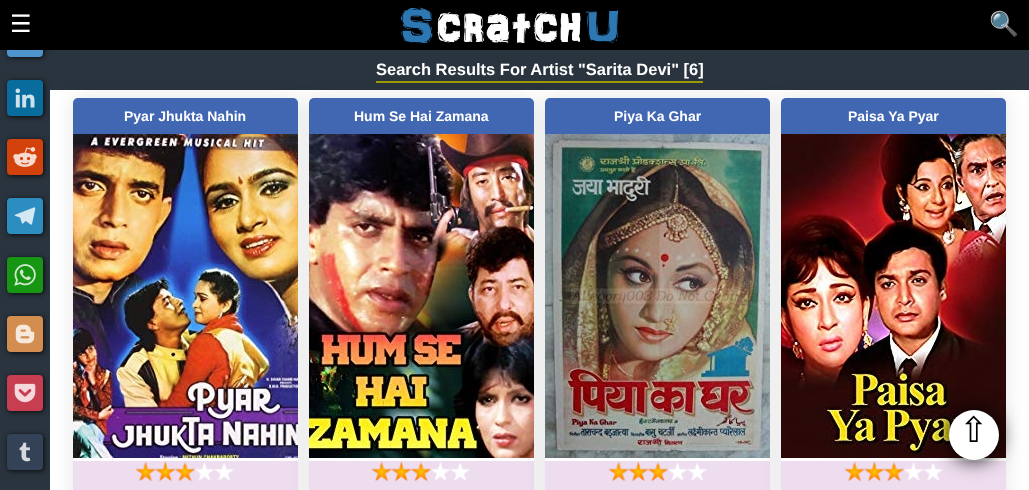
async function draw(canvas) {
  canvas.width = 1029;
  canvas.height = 490;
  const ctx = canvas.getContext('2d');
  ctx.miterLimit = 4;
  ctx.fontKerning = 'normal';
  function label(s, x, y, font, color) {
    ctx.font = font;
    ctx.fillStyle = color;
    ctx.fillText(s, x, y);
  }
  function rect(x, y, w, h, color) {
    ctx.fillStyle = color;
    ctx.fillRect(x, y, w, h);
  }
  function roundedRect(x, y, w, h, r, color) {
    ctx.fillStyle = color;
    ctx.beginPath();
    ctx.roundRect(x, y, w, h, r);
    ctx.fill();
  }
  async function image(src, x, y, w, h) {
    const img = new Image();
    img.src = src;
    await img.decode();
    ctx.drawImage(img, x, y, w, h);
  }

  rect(0, 0, 1029, 490, '#fff');
  rect(50, 50, 979, 40, '#2a343e');
  ctx.fillStyle = '#0000001a';
  ctx.filter = 'blur(10px)';
  ctx.beginPath();
  ctx.roundRect(73, 98, 225, 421, 5);
  ctx.fill();
  ctx.filter = 'none';
  rect(0, 50, 50, 440, '#2a343e');
  ctx.fillStyle = '#080a0c';
  ctx.filter = 'blur(2.5px)';
  ctx.beginPath();
  ctx.roundRect(8, 22, 36, 36, 4);
  ctx.fill();
  ctx.filter = 'none';
  roundedRect(7, 21, 36, 36, 4, '#4c94cb');
  rect(0, 0, 1029, 50, '#000');
  label('☰', 10, 32, '24px DejaVu Sans', '#fff');
  await image('assets/img1.png', 400, 7, 219, 37);
  label('🔍', 989, 32, '24px Noto Color Emoji', '#fff');
  label('Search Results For Artist "Sarita Devi" [6]', 376, 75, 'bold 16.5px Liberation Sans', '#fff');
  rect(376, 81, 327, 2, '#9b9b07');
  roundedRect(73, 98, 225, 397, 5, '#fff');
  await image('assets/img2.png', 73, 134, 225, 324);
  rect(73, 461, 225, 29, '#ede');
  ctx.fillStyle = '#0000001a';
  ctx.filter = 'blur(10px)';
  ctx.beginPath();
  ctx.roundRect(309, 98, 225, 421, 5);
  ctx.fill();
  ctx.filter = 'none';
  ctx.fillStyle = '#4267b2';
  ctx.beginPath();
  ctx.roundRect(73, 98, 225, 36, [5, 5, 0, 0]);
  ctx.fill();
  label('Pyar Jhukta Nahin', 124, 121, 'bold 14px Liberation Sans', '#fff');
  await image('assets/img3.png', 135, 461, 99, 21);
  roundedRect(309, 98, 225, 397, 5, '#fff');
  await image('assets/img4.png', 309, 134, 225, 324);
  rect(309, 461, 225, 29, '#ede');
  ctx.fillStyle = '#0000001a';
  ctx.filter = 'blur(10px)';
  ctx.beginPath();
  ctx.roundRect(545, 98, 225, 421, 5);
  ctx.fill();
  ctx.filter = 'none';
  ctx.fillStyle = '#4267b2';
  ctx.beginPath();
  ctx.roundRect(309, 98, 225, 36, [5, 5, 0, 0]);
  ctx.fill();
  label('Hum Se Hai Zamana', 354, 121, 'bold 14px Liberation Sans', '#fff');
  await image('assets/img3.png', 371, 461, 99, 21);
  roundedRect(545, 98, 225, 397, 5, '#fff');
  await image('assets/img5.png', 545, 134, 225, 324);
  rect(545, 461, 225, 29, '#ede');
  ctx.fillStyle = '#0000001a';
  ctx.filter = 'blur(10px)';
  ctx.beginPath();
  ctx.roundRect(781, 98, 225, 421, 5);
  ctx.fill();
  ctx.filter = 'none';
  ctx.fillStyle = '#4267b2';
  ctx.beginPath();
  ctx.roundRect(545, 98, 225, 36, [5, 5, 0, 0]);
  ctx.fill();
  label('Piya Ka Ghar', 614, 121, 'bold 14px Liberation Sans', '#fff');
  await image('assets/img3.png', 608, 461, 99, 21);
  roundedRect(781, 98, 225, 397, 5, '#fff');
  ctx.fillStyle = '#4267b2';
  ctx.beginPath();
  ctx.roundRect(781, 98, 225, 36, [5, 5, 0, 0]);
  ctx.fill();
  label('Paisa Ya Pyar', 848, 121, 'bold 14px Liberation Sans', '#fff');
  await image('assets/img6.png', 781, 134, 225, 324);
  rect(781, 461, 225, 29, '#ede');
  await image('assets/img3.png', 844, 461, 99, 21);
  ctx.fillStyle = '#000';
  ctx.filter = 'blur(10px)';
  ctx.beginPath();
  ctx.roundRect(949, 410, 50, 50, 25);
  ctx.fill();
  ctx.filter = 'none';
  ctx.fillStyle = '#fff';
  ctx.beginPath();
  ctx.arc(974, 435, 25, 0, 2 * Math.PI);
  ctx.fill();
  label('⇧', 959, 442, '35px DejaVu Sans', '#000');
  ctx.fillStyle = '#080a0c';
  ctx.filter = 'blur(2.5px)';
  ctx.beginPath();
  ctx.roundRect(8, 81, 36, 36, 4);
  ctx.fill();
  ctx.filter = 'none';
  roundedRect(7, 80, 36, 36, 4, '#086d9d');
  await image('assets/img7.png', 15, 88, 20, 20);
  ctx.fillStyle = '#080a0c';
  ctx.filter = 'blur(2.5px)';
  ctx.beginPath();
  ctx.roundRect(8, 140, 36, 36, 4);
  ctx.fill();
  ctx.filter = 'none';
  roundedRect(7, 139, 36, 36, 4, '#d4420c');
  await image('assets/img8.png', 13, 147, 24, 20);
  ctx.fillStyle = '#080a0c';
  ctx.filter = 'blur(2.5px)';
  ctx.beginPath();
  ctx.roundRect(8, 199, 36, 36, 4);
  ctx.fill();
  ctx.filter = 'none';
  roundedRect(7, 198, 36, 36, 4, '#2c8ec0');
  await image('assets/img9.png', 14, 207, 22, 18);
  ctx.fillStyle = '#080a0c';
  ctx.filter = 'blur(2.5px)';
  ctx.beginPath();
  ctx.roundRect(8, 258, 36, 36, 4);
  ctx.fill();
  ctx.filter = 'none';
  roundedRect(7, 257, 36, 36, 4, '#179614');
  await image('assets/img10.png', 14, 264, 22, 22);
  ctx.fillStyle = '#080a0c';
  ctx.filter = 'blur(2.5px)';
  ctx.beginPath();
  ctx.roundRect(8, 317, 36, 36, 4);
  ctx.fill();
  ctx.filter = 'none';
  roundedRect(7, 316, 36, 36, 4, '#d38d4e');
  await image('assets/img11.png', 15, 324, 20, 20);
  ctx.fillStyle = '#080a0c';
  ctx.filter = 'blur(2.5px)';
  ctx.beginPath();
  ctx.roundRect(8, 376, 36, 36, 4);
  ctx.fill();
  ctx.filter = 'none';
  roundedRect(7, 375, 36, 36, 4, '#c73e51');
  await image('assets/img12.png', 14, 383, 22, 20);
  ctx.fillStyle = '#080a0c';
  ctx.filter = 'blur(2.5px)';
  ctx.beginPath();
  ctx.roundRect(8, 435, 36, 36, 4);
  ctx.fill();
  ctx.filter = 'none';
  roundedRect(7, 434, 36, 36, 4, '#334256');
  await image('assets/img13.png', 19, 442, 12, 20);
}

draw(document.querySelector('canvas'));
